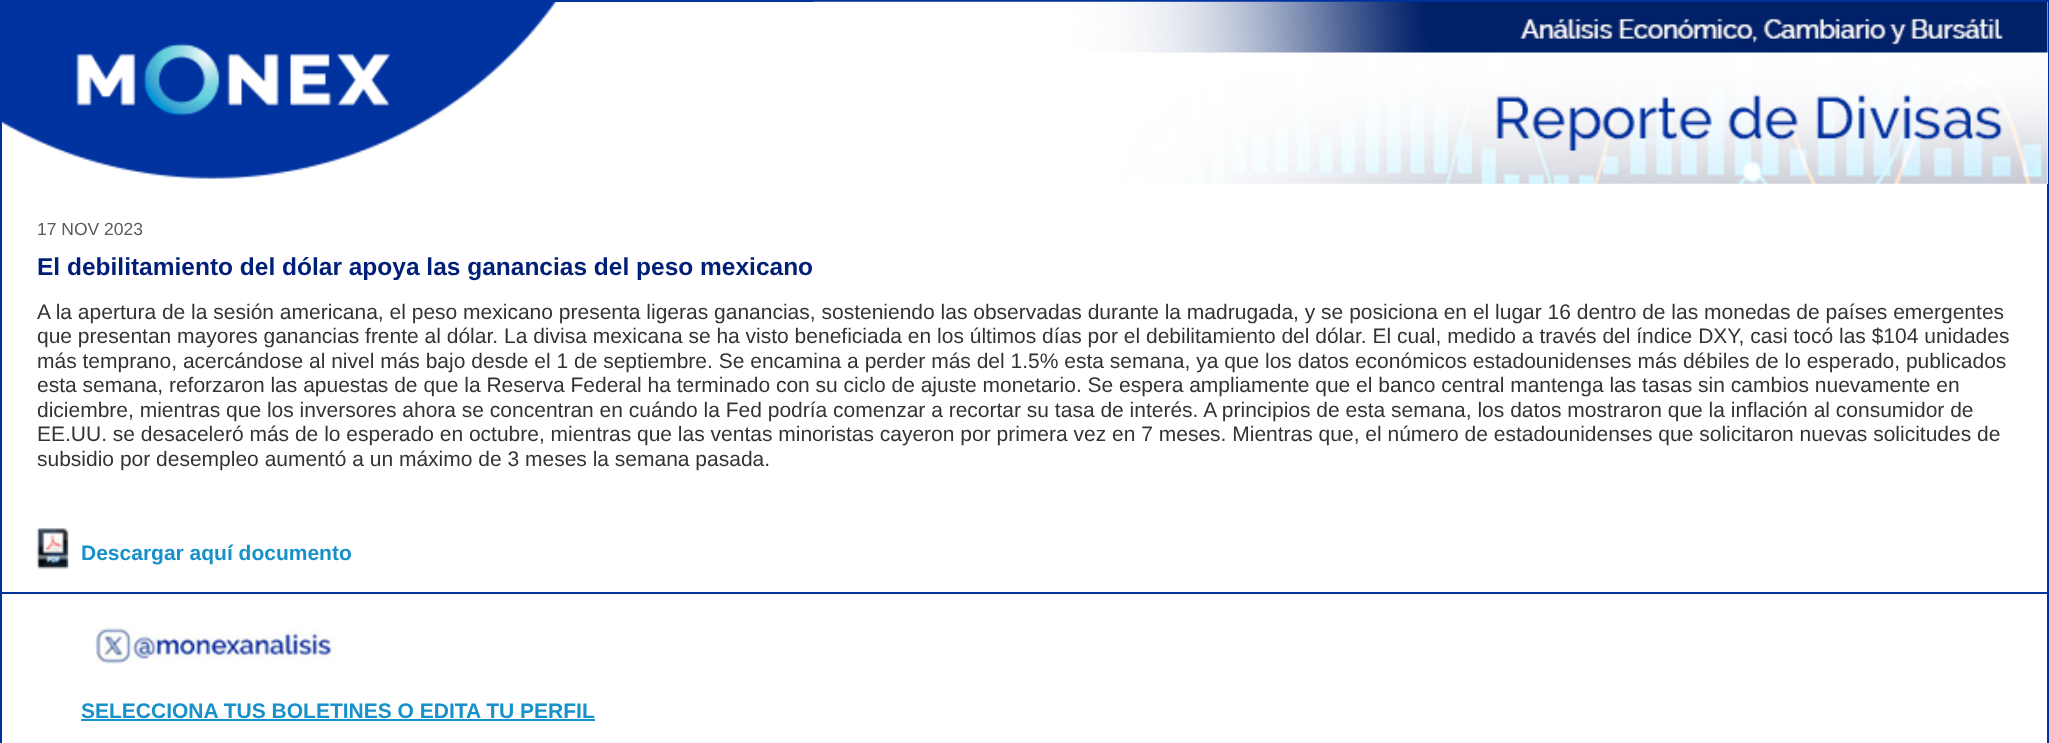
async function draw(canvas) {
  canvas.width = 2049;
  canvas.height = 743;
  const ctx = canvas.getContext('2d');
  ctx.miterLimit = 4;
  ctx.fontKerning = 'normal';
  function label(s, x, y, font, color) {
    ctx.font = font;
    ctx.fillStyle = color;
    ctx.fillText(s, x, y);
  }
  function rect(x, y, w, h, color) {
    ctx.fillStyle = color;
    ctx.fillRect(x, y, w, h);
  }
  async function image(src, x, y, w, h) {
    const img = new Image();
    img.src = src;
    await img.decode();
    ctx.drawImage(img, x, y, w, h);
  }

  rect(0, 0, 2049, 743, '#fff');
  ctx.strokeStyle = '#00329e';
  ctx.lineWidth = 2;
  ctx.strokeRect(1, 1, 2047, 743);
  rect(2047, 2, 1, 182, '#fff');
  await image('assets/img1.png', 2, 2, 555, 177);
  await image('assets/img2.png', 813, 1, 1235, 183);
  rect(2, 592, 2046, 2, '#00329e');
  label('17 NOV 2023', 37, 235, '17.5px Liberation Sans', '#5a5a5a');
  label('El debilitamiento del dólar apoya las ganancias del peso mexicano', 37, 275, 'bold 24.5px Liberation Sans', '#011f77');
  label('A la apertura de la sesión americana, el peso mexicano presenta ligeras ganancias, sosteniendo las observadas durante la madrugada, y se posiciona en el lugar 16 dentro de las monedas de países emergentes', 37, 319, '21px Liberation Sans', '#333');
  label('que presentan mayores ganancias frente al dólar. La divisa mexicana se ha visto beneficiada en los últimos días por el debilitamiento del dólar. El cual, medido a través del índice DXY, casi tocó las $104 unidades', 37, 343, '21px Liberation Sans', '#333');
  label('más temprano, acercándose al nivel más bajo desde el 1 de septiembre. Se encamina a perder más del 1.5% esta semana, ya que los datos económicos estadounidenses más débiles de lo esperado, publicados', 37, 368, '21px Liberation Sans', '#333');
  label('esta semana, reforzaron las apuestas de que la Reserva Federal ha terminado con su ciclo de ajuste monetario. Se espera ampliamente que el banco central mantenga las tasas sin cambios nuevamente en', 37, 392, '21px Liberation Sans', '#333');
  label('diciembre, mientras que los inversores ahora se concentran en cuándo la Fed podría comenzar a recortar su tasa de interés. A principios de esta semana, los datos mostraron que la inflación al consumidor de', 37, 417, '21px Liberation Sans', '#333');
  label('EE.UU. se desaceleró más de lo esperado en octubre, mientras que las ventas minoristas cayeron por primera vez en 7 meses. Mientras que, el número de estadounidenses que solicitaron nuevas solicitudes de', 37, 441, '21px Liberation Sans', '#333');
  label('subsidio por desempleo aumentó a un máximo de 3 meses la semana pasada.', 37, 466, '21px Liberation Sans', '#333');
  await image('assets/img3.png', 36, 528, 33, 41);
  label('Descargar aquí documento', 81, 560, 'bold 21px Liberation Sans', '#1891ca');
  await image('assets/img4.png', 95, 628, 241, 36);
  label('SELECCIONA TUS BOLETINES O EDITA TU PERFIL', 81, 718, 'bold 21px Liberation Sans', '#1891ca');
  rect(81, 719, 514, 2, '#1891ca');
}

draw(document.querySelector('canvas'));
